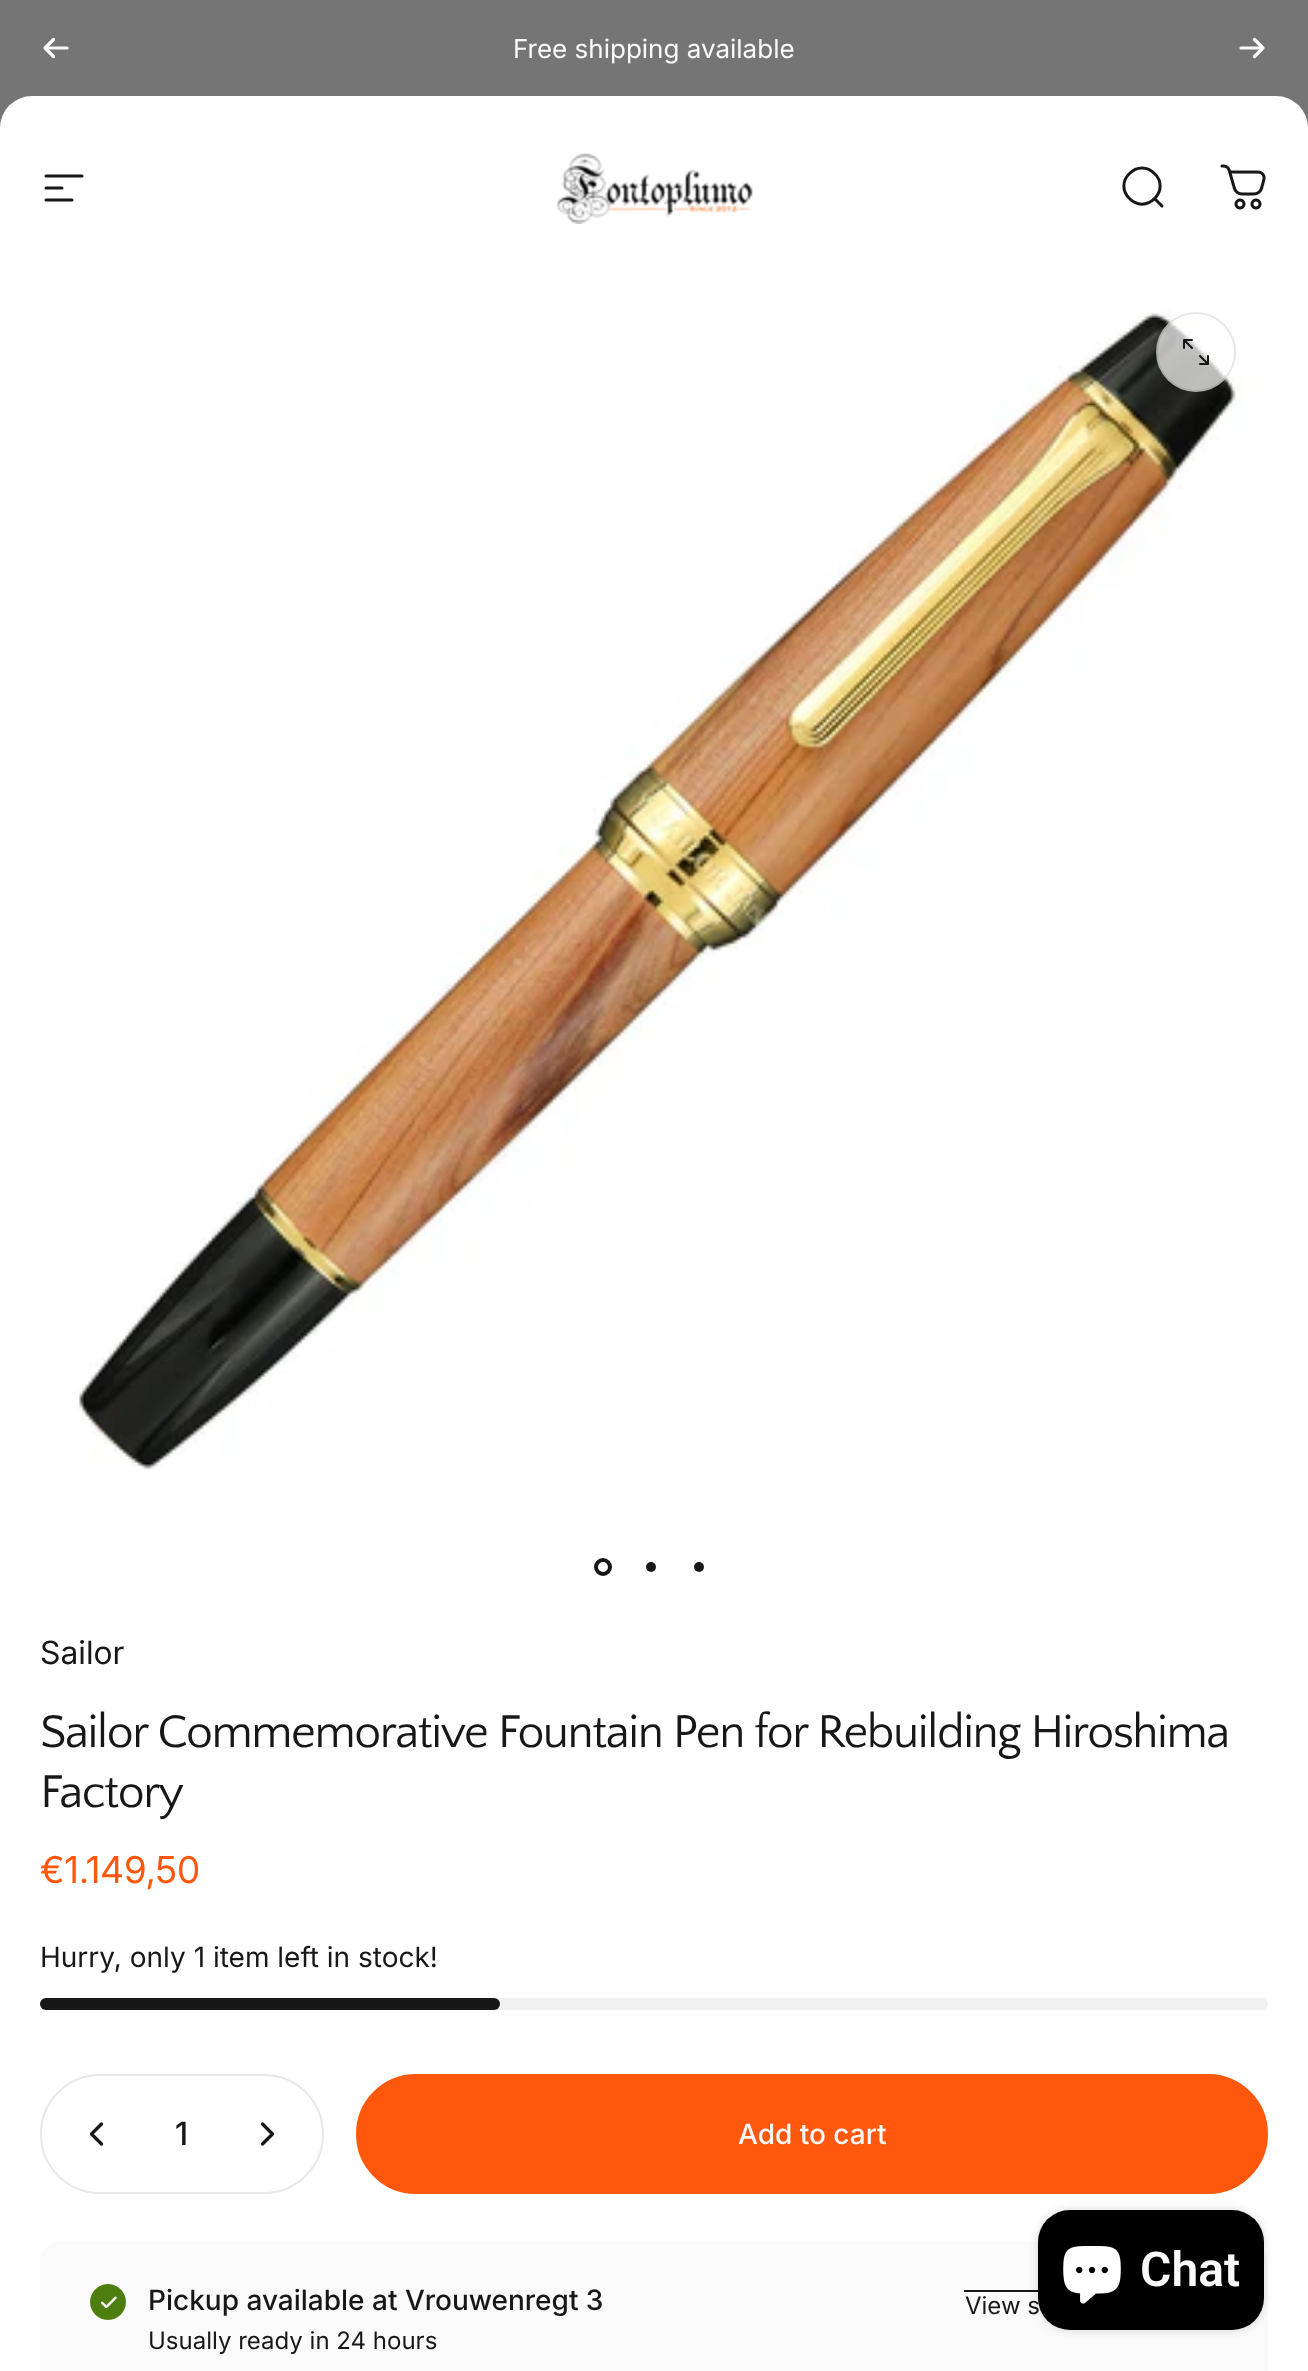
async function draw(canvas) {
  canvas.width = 1308;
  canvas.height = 2371;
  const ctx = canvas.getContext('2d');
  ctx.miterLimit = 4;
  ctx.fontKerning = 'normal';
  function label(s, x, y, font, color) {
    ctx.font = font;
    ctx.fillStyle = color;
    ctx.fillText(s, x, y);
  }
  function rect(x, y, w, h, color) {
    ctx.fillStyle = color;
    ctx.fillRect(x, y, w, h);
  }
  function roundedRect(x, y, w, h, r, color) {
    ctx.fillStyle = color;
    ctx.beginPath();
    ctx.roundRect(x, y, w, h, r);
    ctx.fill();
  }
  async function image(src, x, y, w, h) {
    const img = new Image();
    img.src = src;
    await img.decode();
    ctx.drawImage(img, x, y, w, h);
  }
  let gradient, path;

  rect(0, 0, 1308, 2371, '#fff');
  rect(0, 0, 1308, 32, '#757575');
  ctx.beginPath();
  ctx.roundRect(0, 0, 1308, 128, [32, 32, 0, 0]);
  ctx.fill();
  path = new Path2D('M53.5 39.5L45 48M45 48L53.5 56.5M45 48H67');
  ctx.strokeStyle = '#fafafa';
  ctx.lineWidth = 3.2;
  ctx.lineCap = 'round';
  ctx.lineJoin = 'round';
  ctx.stroke(path);
  label('Free shipping available', 513, 58, '26px Inter', '#fafafa');
  path = new Path2D('M1241 48H1263M1263 48L1254.5 39.5M1263 48L1254.5 56.5');
  ctx.stroke(path);
  ctx.fillStyle = '#fff';
  ctx.beginPath();
  ctx.roundRect(0, 96, 1308, 184, [32, 32, 0, 0]);
  ctx.fill();
  path = new Path2D('M46 176H82M46 188H62M46 200H72');
  ctx.strokeStyle = '#171717';
  ctx.lineWidth = 3;
  ctx.lineJoin = 'miter';
  ctx.stroke(path);
  await image('assets/img1.png', 555, 153, 198, 71);
  path = new Path2D('M1162 206L1154.5 198.5M1154.5 198.5C1162 191.5 1162 180.5 1154.5 173.5C1147.5 166 1136.5 166 1129.5 173.5C1122 180.5 1122 191.5 1129.5 198.5C1136.5 206 1147.5 206 1154.5 198.5Z');
  ctx.stroke(path);
  await image('assets/img2.png', 1220, 164, 46, 46);
  roundedRect(40, 280, 1228, 1228, 20, '#fafafa');
  await image('assets/img3.png', 40, 280, 1228, 1228);
  ctx.fillStyle = '#ffffffb3';
  ctx.beginPath();
  ctx.arc(1196, 352, 40, 0, 2 * Math.PI);
  ctx.fill();
  ctx.beginPath();
  ctx.arc(1196, 352, 39, 0, 2 * Math.PI);
  ctx.strokeStyle = '#1717171a';
  ctx.lineWidth = 2;
  ctx.stroke();
  path = new Path2D('M1184 340V348M1184 340H1192M1184 340L1192 348M1208 364V356M1208 364H1200M1208 364L1200 356');
  ctx.strokeStyle = '#171717';
  ctx.lineJoin = 'round';
  ctx.stroke(path);
  ctx.beginPath();
  ctx.arc(603, 1567, 7, 0, 2 * Math.PI);
  ctx.lineWidth = 4;
  ctx.stroke();
  ctx.fillStyle = '#171717';
  ctx.beginPath();
  ctx.arc(651, 1567, 5, 0, 2 * Math.PI);
  ctx.fill();
  ctx.beginPath();
  ctx.arc(699, 1567, 5, 0, 2 * Math.PI);
  ctx.fill();
  label('Sailor', 40, 1664, '32px "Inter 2"', '#171717');
  ctx.letterSpacing = '-1.45px';
  label('Sailor Commemorative Fountain Pen for Rebuilding Hiroshima', 40, 1747, '48px Quattrocento Sans', '#171717');
  label('Factory', 40, 1807, '48px Quattrocento Sans', '#171717');
  ctx.letterSpacing = '0px';
  label('€1.149,50', 40, 1883, '37px "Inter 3"', '#ff580c');
  label('Hurry, only 1 item left in stock!', 40, 1967, '28px Inter', '#171717');
  roundedRect(40, 1998, 1228, 12, 6, '#f1f1f1');
  roundedRect(40, 1998, 460, 12, 6, '#171717');
  ctx.beginPath();
  ctx.roundRect(41, 2075, 282, 118, 59);
  ctx.strokeStyle = '#e8e8e8';
  ctx.lineWidth = 2;
  ctx.lineJoin = 'miter';
  ctx.stroke();
  path = new Path2D('M101.5 2124L91.5 2134L101.5 2144');
  ctx.strokeStyle = '#171717';
  ctx.lineWidth = 3.3;
  ctx.lineJoin = 'round';
  ctx.stroke(path);
  label('1', 175, 2145, '500 32px "Inter 2"', '#171717');
  path = new Path2D('M262.5 2124L272.5 2134L262.5 2144');
  ctx.stroke(path);
  gradient = ctx.createLinearGradient(853, 1970, 771, 2298);
  gradient.addColorStop(0, '#ffe431');
  gradient.addColorStop(0.01, '#ff580c');
  ctx.fillStyle = gradient;
  ctx.beginPath();
  ctx.roundRect(358, 2076, 908, 116, 58);
  ctx.fill();
  ctx.strokeStyle = '#ff580c';
  ctx.lineWidth = 4;
  ctx.lineJoin = 'miter';
  ctx.stroke();
  label('Add to cart', 738, 2144, '500 28px Inter', '#fafafa');
  roundedRect(40, 2242, 1228, 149, 20, '#fafafa');
  await image('assets/img4.png', 90, 2284, 36, 36);
  label('Pickup available at Vrouwenregt 3', 148, 2310, '500 28px Inter', '#171717');
  label('Usually ready in 24 hours', 148, 2349, '24px Inter', '#171717');
  label('View s', 965, 2314, '24px Inter', '#171717');
  rect(964, 2290, 74, 2, '#171717');
  ctx.fillStyle = '#00000026';
  ctx.filter = 'blur(5px)';
  ctx.beginPath();
  ctx.roundRect(1038, 2210, 226, 120, 32);
  ctx.fill();
  ctx.filter = 'none';
  roundedRect(1038, 2210, 226, 120, 32, '#000');
  await image('assets/img5.png', 1063, 2246, 58, 58);
  label('Chat', 1140, 2286, '600 48px Roboto', '#fafafa');
}

draw(document.querySelector('canvas'));
